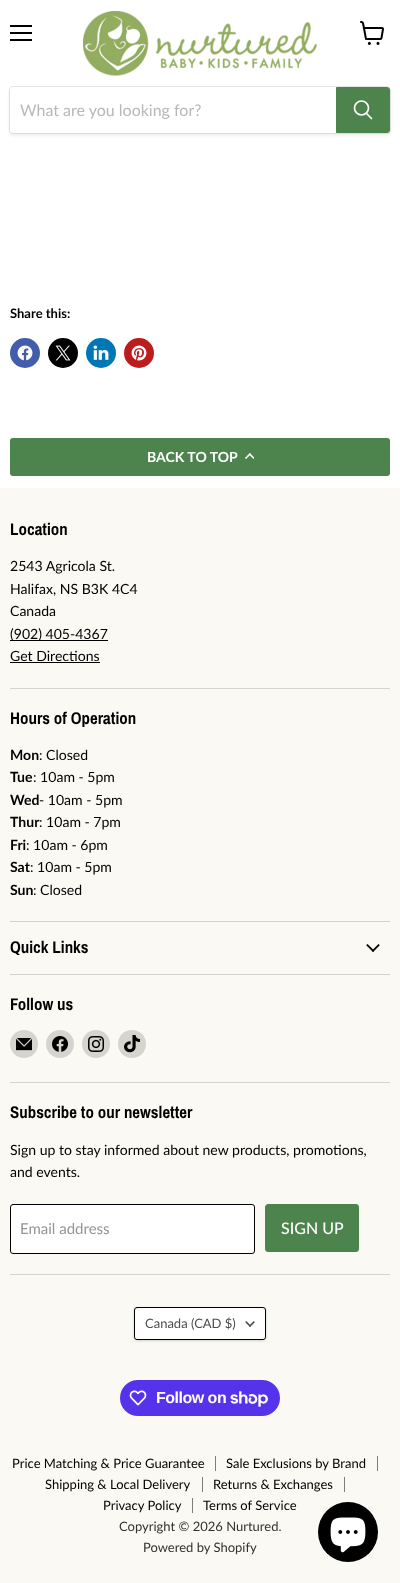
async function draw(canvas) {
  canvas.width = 400;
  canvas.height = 1583;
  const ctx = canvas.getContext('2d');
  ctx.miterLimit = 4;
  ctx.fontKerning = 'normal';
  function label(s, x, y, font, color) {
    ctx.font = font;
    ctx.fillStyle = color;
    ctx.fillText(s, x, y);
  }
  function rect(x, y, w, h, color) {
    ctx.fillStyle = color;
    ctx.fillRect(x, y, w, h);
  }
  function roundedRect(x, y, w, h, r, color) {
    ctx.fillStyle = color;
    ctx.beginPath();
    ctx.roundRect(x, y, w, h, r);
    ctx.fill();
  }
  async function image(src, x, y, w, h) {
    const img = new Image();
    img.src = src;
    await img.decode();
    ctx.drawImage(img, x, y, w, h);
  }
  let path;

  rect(0, 0, 400, 1583, '#fff');
  rect(10, 25, 22, 2, '#000');
  rect(10, 32, 22, 2, '#000');
  rect(10, 39, 22, 2, '#000');
  await image('assets/img1.png', 360, 21, 24, 24);
  await image('assets/img2.png', 83, 11, 234, 65);
  ctx.fillStyle = '#8080801c';
  ctx.filter = 'blur(1.5px)';
  ctx.beginPath();
  ctx.roundRect(9, 88, 382, 48, 4);
  ctx.fill();
  ctx.filter = 'none';
  ctx.beginPath();
  ctx.roundRect(9.5, 86.5, 381, 47, 3.5);
  ctx.strokeStyle = '#80808033';
  ctx.stroke();
  ctx.fillStyle = '#fff';
  ctx.beginPath();
  ctx.roundRect(10, 87, 326, 46, [3, 0, 0, 3]);
  ctx.fill();
  label('What are you looking for?', 20, 116, '16px Lato', '#b8b8b8');
  ctx.fillStyle = '#4d834c';
  ctx.beginPath();
  ctx.roundRect(336.5, 87.5, 53, 45, [0, 2.5, 2.5, 0]);
  ctx.fill();
  ctx.strokeStyle = '#4d834c';
  ctx.stroke();
  path = new Path2D('M371.5 118.5L366.5 113.5');
  ctx.strokeStyle = '#fff';
  ctx.lineWidth = 1.7;
  ctx.lineCap = 'round';
  ctx.stroke(path);
  ctx.beginPath();
  ctx.arc(361.5, 108, 7, 0, 2 * Math.PI);
  ctx.stroke();
  label('Share this:', 10, 318, 'bold 13px Lato', '#000');
  ctx.fillStyle = '#425dab';
  ctx.beginPath();
  ctx.arc(25, 353, 15, 0, 2 * Math.PI);
  ctx.fill();
  await image('assets/img3.png', 17, 345, 16, 16);
  ctx.fillStyle = '#000';
  ctx.beginPath();
  ctx.arc(63, 353, 15, 0, 2 * Math.PI);
  ctx.fill();
  await image('assets/img4.png', 55, 345, 16, 16);
  ctx.fillStyle = '#0077b5';
  ctx.beginPath();
  ctx.arc(101, 353, 15, 0, 2 * Math.PI);
  ctx.fill();
  await image('assets/img5.png', 93, 345, 16, 15);
  ctx.fillStyle = '#bd1c1c';
  ctx.beginPath();
  ctx.arc(139, 353, 15, 0, 2 * Math.PI);
  ctx.fill();
  await image('assets/img6.png', 131, 345, 16, 16);
  roundedRect(10, 438, 380, 38, 3, '#4d834c');
  label('BACK TO TOP', 147, 462, 'bold 14px Lato', '#fff');
  await image('assets/img7.png', 245, 453, 9, 6);
  rect(0, 488, 400, 1095, '#faf9f4');
  rect(10, 688, 380, 1, '#d5d4cf');
  label('Location', 10, 535, 'bold 16.9px Archivo Narrow', '#000');
  label('2543 Agricola St.', 10, 571, '14.05px Lato', '#000');
  label('Halifax, NS B3K 4C4', 10, 594, '14.05px Lato', '#000');
  label('Canada', 10, 616, '14.05px Lato', '#000');
  rect(10, 640, 98, 1, '#000');
  label('(902) 405-4367', 10, 639, '14.05px Lato', '#000');
  label('Get Directions', 10, 661, '14.05px Lato', '#000');
  rect(10, 662, 90, 1, '#000');
  rect(10, 921, 380, 1, '#d5d4cf');
  label('Hours of Operation', 10, 724, 'bold 16.9px Archivo Narrow', '#000');
  label('Mon', 10, 760, 'bold 14.05px Lato', '#000');
  label(': Closed', 39, 760, '14.05px Lato', '#000');
  label('Tue', 10, 782, 'bold 14.05px Lato', '#000');
  label(': 10am - 5pm', 33, 782, '14.05px Lato', '#000');
  label('Wed', 10, 805, 'bold 14.05px Lato', '#000');
  label('- 10am - 5pm', 39, 805, '14.05px Lato', '#000');
  label('Thur', 10, 827, 'bold 14.05px Lato', '#000');
  label(': 10am - 7pm', 39, 827, '14.05px Lato', '#000');
  label('Fri', 10, 850, 'bold 14.05px Lato', '#000');
  label(': 10am - 6pm', 26, 850, '14.05px Lato', '#000');
  label('Sat', 10, 872, 'bold 14.05px Lato', '#000');
  label(': 10am - 5pm', 30, 872, '14.05px Lato', '#000');
  label('Sun', 10, 895, 'bold 14.05px Lato', '#000');
  label(': Closed', 33, 895, '14.05px Lato', '#000');
  rect(10, 974, 380, 1, '#d5d4cf');
  label('Quick Links', 10, 953, 'bold 16.9px Archivo Narrow', '#000');
  await image('assets/img8.png', 366, 944, 14, 8);
  rect(10, 1082, 380, 1, '#d5d4cf');
  label('Follow us', 10, 1010, 'bold 16.9px Archivo Narrow', '#000');
  ctx.fillStyle = '#d5d4cf';
  ctx.beginPath();
  ctx.arc(24, 1044, 14, 0, 2 * Math.PI);
  ctx.fill();
  await image('assets/img9.png', 16, 1038, 16, 13);
  ctx.beginPath();
  ctx.arc(60, 1044, 14, 0, 2 * Math.PI);
  ctx.fill();
  await image('assets/img10.png', 52, 1036, 16, 16);
  ctx.beginPath();
  ctx.arc(96, 1044, 14, 0, 2 * Math.PI);
  ctx.fill();
  await image('assets/img11.png', 88, 1036, 16, 16);
  ctx.beginPath();
  ctx.arc(132, 1044, 14, 0, 2 * Math.PI);
  ctx.fill();
  await image('assets/img12.png', 124, 1035, 16, 18);
  rect(10, 1274, 380, 1, '#d5d4cf');
  label('Subscribe to our newsletter', 10, 1118, 'bold 16.9px Archivo Narrow', '#000');
  label('Sign up to stay informed about new products, promotions,', 10, 1155, '14.05px Lato', '#000');
  label('and events.', 10, 1177, '14.05px Lato', '#000');
  ctx.fillStyle = '#fff';
  ctx.beginPath();
  ctx.roundRect(10.5, 1204.5, 244, 49, 2.5);
  ctx.fill();
  ctx.strokeStyle = '#000';
  ctx.lineWidth = 1;
  ctx.stroke();
  label('Email address', 20, 1234, '15px Lato', '#949494');
  ctx.fillStyle = '#4d834c';
  ctx.beginPath();
  ctx.roundRect(265.5, 1204.5, 93, 47, 2.5);
  ctx.fill();
  ctx.strokeStyle = '#4d834c';
  ctx.stroke();
  label('SIGN UP', 281, 1234, '500 16px Lato', '#fff');
  ctx.fillStyle = '#00000026';
  ctx.filter = 'blur(1px)';
  ctx.beginPath();
  ctx.roundRect(134, 1308, 132, 33, 3);
  ctx.fill();
  ctx.filter = 'none';
  ctx.fillStyle = '#fff';
  ctx.beginPath();
  ctx.roundRect(134.5, 1307.5, 131, 32, 2.5);
  ctx.fill();
  ctx.strokeStyle = '#000';
  ctx.stroke();
  label('Canada (CAD $)', 145, 1328, '13px Lato', '#4d4d4d');
  await image('assets/img13.png', 245, 1321, 10, 6);
  roundedRect(120, 1380, 160, 36, 18, '#5433eb');
  await image('assets/img14.png', 129, 1390, 18, 16);
  ctx.letterSpacing = '-0.5px';
  label('Follow on', 156, 1403, 'bold 16px Liberation Sans', '#fff');
  await image('assets/img15.png', 230, 1391, 38, 16);
  rect(215, 1456, 1, 15, '#7d7d7a');
  ctx.letterSpacing = '0px';
  label('Price Matching & Price Guarantee', 12, 1468, '13px Lato', '#000');
  rect(377, 1456, 1, 15, '#7d7d7a');
  label('Sale Exclusions by Brand', 226, 1468, '13px Lato', '#000');
  rect(202, 1477, 1, 15, '#7d7d7a');
  label('Shipping & Local Delivery', 45, 1489, '13px Lato', '#000');
  rect(344, 1477, 1, 15, '#7d7d7a');
  label('Returns & Exchanges', 213, 1489, '13px Lato', '#000');
  rect(192, 1498, 1, 15, '#7d7d7a');
  label('Privacy Policy', 103, 1510, '13px Lato', '#000');
  label('Terms of Service', 203, 1510, '13px Lato', '#000');
  label('Copyright © 2026 Nurtured.', 119, 1531, '13px Lato', '#323231');
  label('Powered by Shopify', 143, 1552, '13px Lato', '#323231');
  ctx.fillStyle = '#000';
  ctx.beginPath();
  ctx.arc(348, 1532, 30, 0, 2 * Math.PI);
  ctx.fill();
  await image('assets/img16.png', 330, 1517, 36, 36);
}

draw(document.querySelector('canvas'));
